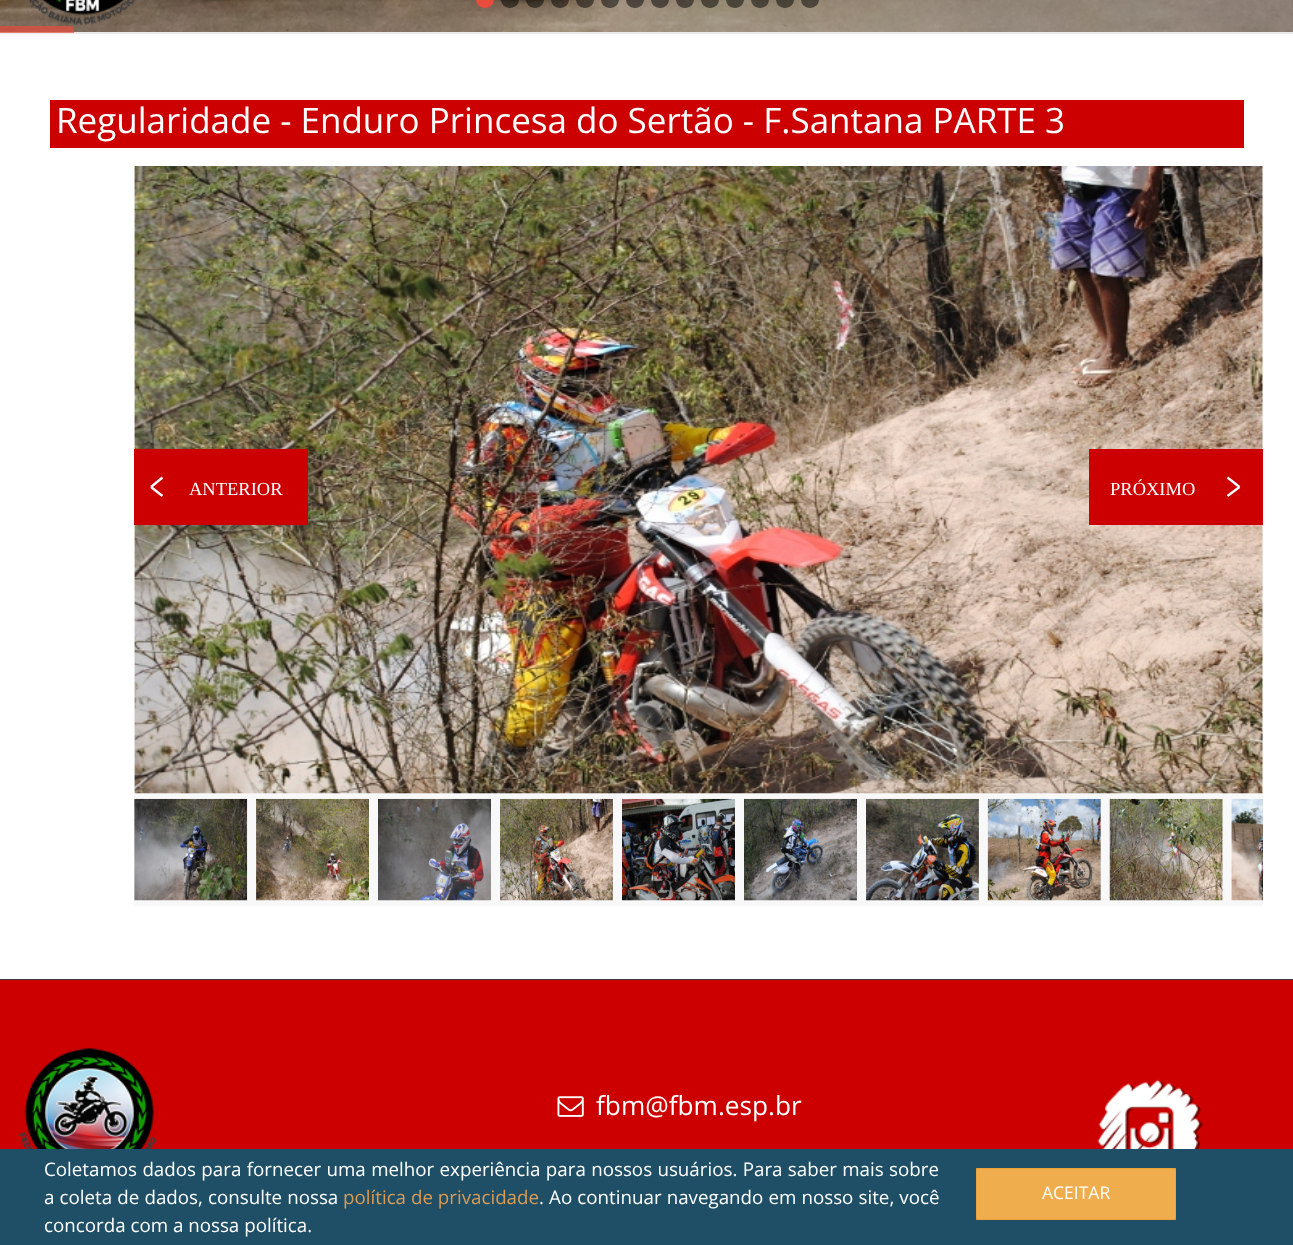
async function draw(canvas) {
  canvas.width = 1293;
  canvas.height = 1245;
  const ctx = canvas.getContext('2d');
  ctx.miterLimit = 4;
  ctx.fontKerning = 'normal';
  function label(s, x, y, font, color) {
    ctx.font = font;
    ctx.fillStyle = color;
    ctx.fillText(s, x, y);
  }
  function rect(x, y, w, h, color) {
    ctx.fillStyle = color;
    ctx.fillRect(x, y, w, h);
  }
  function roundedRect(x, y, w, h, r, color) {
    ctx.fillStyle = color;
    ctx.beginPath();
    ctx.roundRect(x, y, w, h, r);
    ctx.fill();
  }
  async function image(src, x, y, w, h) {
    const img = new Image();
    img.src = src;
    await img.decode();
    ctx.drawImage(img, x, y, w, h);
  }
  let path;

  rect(0, 0, 1293, 1245, '#fff');
  rect(0, 32, 1293, 1, '#f1f1f1');
  rect(0, 33, 1293, 1, '#eaeaea');
  await image('assets/img1.png', 0, 0, 1293, 33);
  roundedRect(476, -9, 18, 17, 9, '#e84c3d');
  roundedRect(501, -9, 18, 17, 9, '#00000080');
  roundedRect(526, -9, 18, 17, 9, '#00000080');
  roundedRect(551, -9, 18, 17, 9, '#00000080');
  roundedRect(576, -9, 18, 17, 9, '#00000080');
  roundedRect(601, -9, 18, 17, 9, '#00000080');
  roundedRect(626, -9, 18, 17, 9, '#00000080');
  roundedRect(651, -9, 18, 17, 9, '#00000080');
  roundedRect(676, -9, 18, 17, 9, '#00000080');
  roundedRect(701, -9, 18, 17, 9, '#00000080');
  roundedRect(726, -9, 18, 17, 9, '#00000080');
  roundedRect(751, -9, 18, 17, 9, '#00000080');
  roundedRect(776, -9, 18, 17, 9, '#00000080');
  roundedRect(801, -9, 18, 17, 9, '#00000080');
  rect(0, 26, 74, 7, '#e84c3db3');
  await image('assets/img2.png', 29, 0, 107, 25);
  rect(50, 100, 1194, 48, '#c00');
  label('Regularidade - Enduro Princesa do Sertão - F.Santana PARTE 3', 56, 133, '35px Open Sans', '#fff');
  rect(134, 166, 1129, 740, '#f8f8f8');
  await image('assets/img3.png', 134, 166, 1129, 628);
  rect(134, 449, 174, 76, '#c00');
  label('ANTERIOR', 189, 495, '18.5px Liberation Serif', '#fff');
  path = new Path2D('M151 487L162.5 477.5M151 487L162.5 496');
  ctx.strokeStyle = '#fff';
  ctx.lineWidth = 2.3;
  ctx.stroke(path);
  rect(1089, 449, 174, 76, '#c00');
  label('PRÓXIMO', 1110, 495, '18.5px Liberation Serif', '#fff');
  path = new Path2D('M1227.5 477.5L1239.5 487M1227.5 496L1239.5 487');
  ctx.stroke(path);
  await image('assets/img4.png', 134, 798, 114, 103);
  await image('assets/img5.png', 256, 798, 113, 103);
  await image('assets/img6.png', 378, 798, 113, 103);
  await image('assets/img7.png', 500, 798, 113, 103);
  await image('assets/img8.png', 622, 798, 113, 103);
  await image('assets/img9.png', 744, 798, 113, 103);
  await image('assets/img10.png', 866, 798, 113, 103);
  await image('assets/img11.png', 987, 798, 114, 103);
  await image('assets/img12.png', 1109, 798, 114, 103);
  await image('assets/img13.png', 1231, 799, 32, 102);
  rect(0, 980, 1293, 169, '#c00');
  rect(0, 979, 1293, 1, '#3a3a3a');
  await image('assets/img14.png', 18, 1048, 139, 101);
  await image('assets/img15.png', 557, 1096, 27, 21);
  label('fbm@fbm.esp.br', 596, 1115, '26.25px Open Sans', '#fff');
  await image('assets/img16.png', 1097, 1079, 106, 70);
  rect(0, 1149, 1293, 96, '#1f4f66');
  ctx.wordSpacing = '0.5px';
  label('Coletamos dados para fornecer uma melhor experiência para nossos usuários. Para saber mais sobre', 44, 1176, '18.75px Open Sans', '#fff');
  ctx.wordSpacing = '0.25px';
  label('a coleta de dados, consulte nossa', 44, 1204, '18.75px Open Sans', '#fff');
  ctx.wordSpacing = '0px';
  label('política de privacidade', 343, 1204, '18.75px Open Sans', '#dc9b53');
  ctx.wordSpacing = '0.25px';
  label('. Ao continuar navegando em nosso site, você', 539, 1204, '18.75px Open Sans', '#fff');
  ctx.wordSpacing = '0px';
  label('concorda com a nossa política.', 44, 1232, '18.75px Open Sans', '#fff');
  ctx.fillStyle = '#f0ad4e';
  ctx.beginPath();
  ctx.rect(976.5, 1168.5, 199, 51);
  ctx.fill();
  ctx.strokeStyle = '#eea236';
  ctx.lineWidth = 1;
  ctx.stroke();
  label('ACEITAR', 1042, 1199, '17.5px Open Sans', '#fff');
}

draw(document.querySelector('canvas'));
